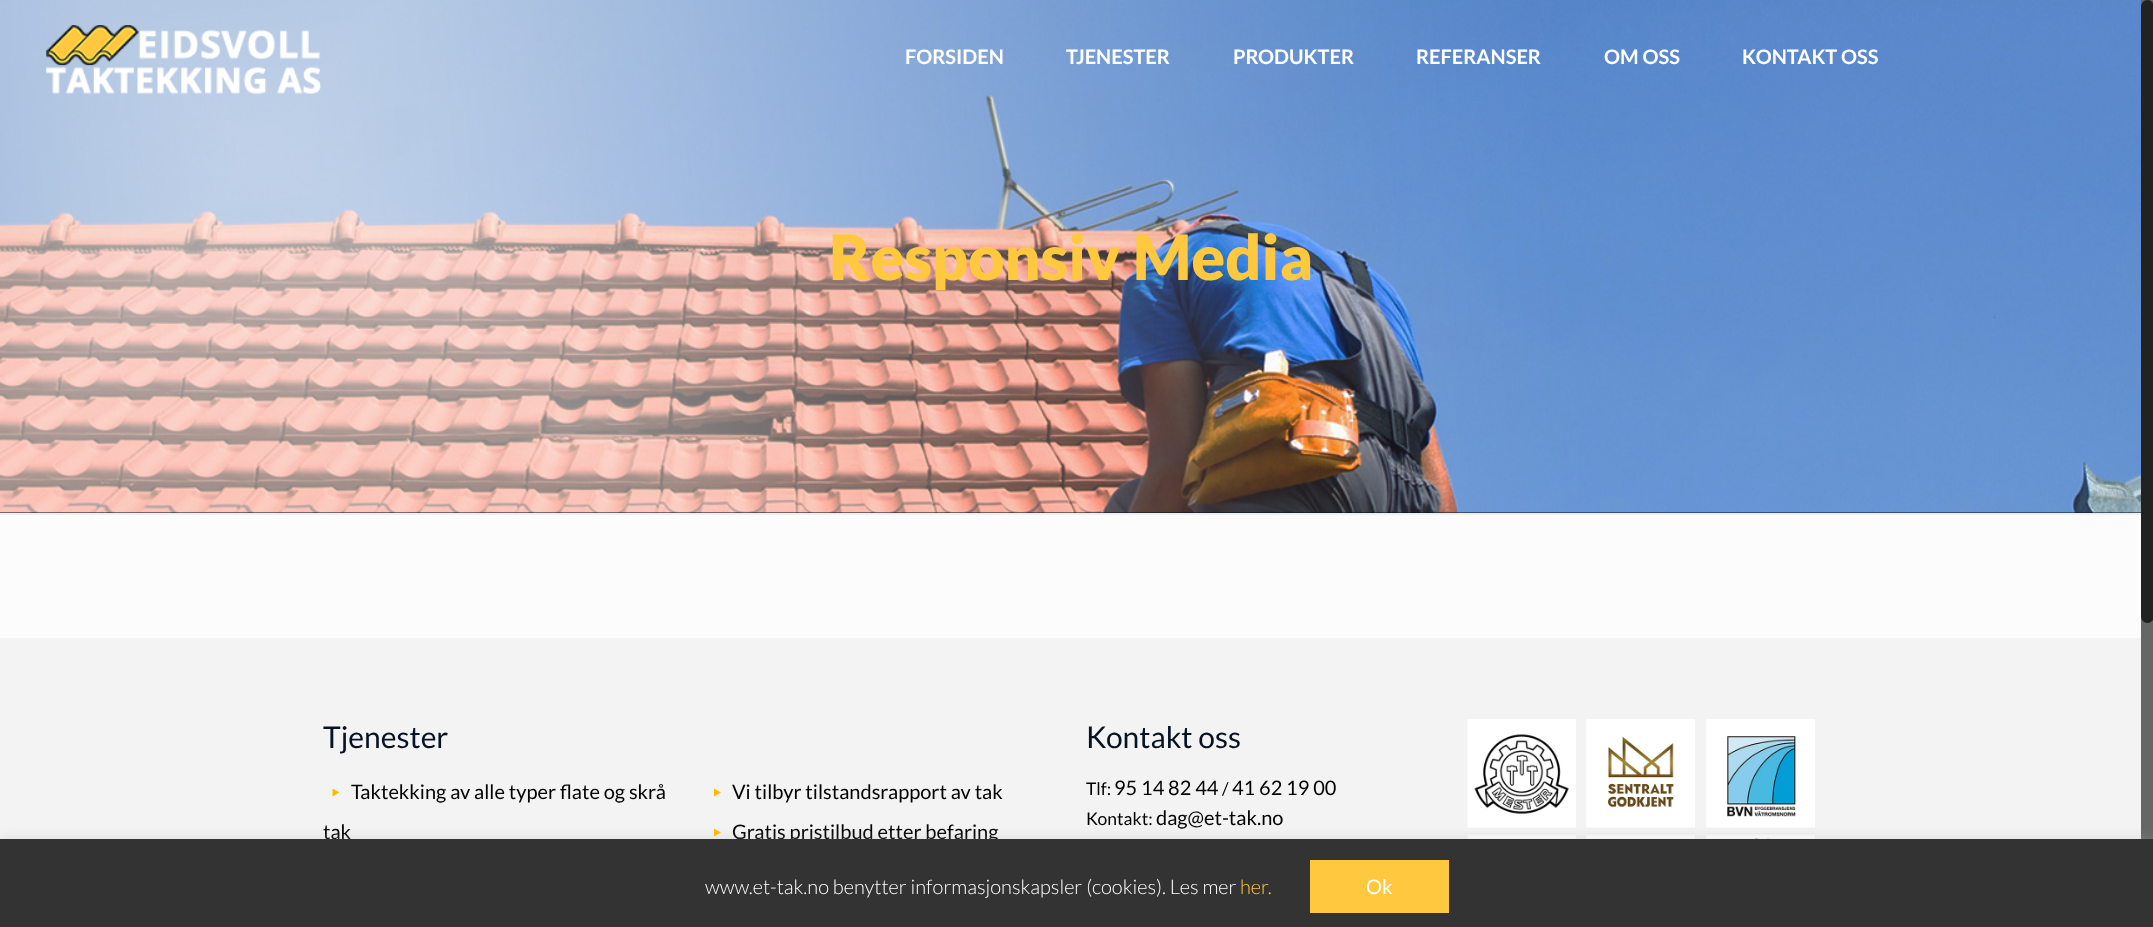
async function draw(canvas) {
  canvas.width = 2153;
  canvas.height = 927;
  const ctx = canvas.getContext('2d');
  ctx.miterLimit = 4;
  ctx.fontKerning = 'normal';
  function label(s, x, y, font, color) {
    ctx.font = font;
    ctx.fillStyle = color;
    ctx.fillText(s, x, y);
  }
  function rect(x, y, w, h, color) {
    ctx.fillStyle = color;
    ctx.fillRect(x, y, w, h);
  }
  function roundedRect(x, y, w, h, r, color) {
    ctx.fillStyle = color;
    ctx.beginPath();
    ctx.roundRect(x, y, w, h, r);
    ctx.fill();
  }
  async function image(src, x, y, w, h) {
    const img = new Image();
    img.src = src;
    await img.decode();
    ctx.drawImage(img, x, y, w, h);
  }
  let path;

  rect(0, 0, 2153, 927, '#fcfcfc');
  rect(0, 512, 2141, 1, '#071323');
  await image('assets/img2.png', 0, 0, 2141, 513);
  await image('assets/img1.png', 46, 25, 276, 69);
  label('FORSIDEN', 905, 64, 'bold 20px Lato', '#fff');
  label('TJENESTER', 1066, 64, 'bold 20px Lato', '#fff');
  label('PRODUKTER', 1233, 64, 'bold 20px Lato', '#fff');
  label('REFERANSER', 1416, 64, 'bold 20px Lato', '#fff');
  label('OM OSS', 1604, 64, 'bold 20px Lato', '#fff');
  label('KONTAKT OSS', 1742, 64, 'bold 20px Lato', '#fff');
  label('Responsiv Media', 829, 280, '900 62.5px Lato', '#ffc83f');
  rect(0, 512, 2141, 3, '#0000000d');
  rect(0, 638, 2141, 201, '#f3f3f3');
  label('Tjenester', 323, 748, '30px Lato', '#071323');
  ctx.fillStyle = '#ffba00';
  path = new Path2D('M332.5 788.5L339.5 792.5L332.5 796.5Z');
  ctx.fill(path);
  label('Taktekking av alle typer flate og skrå', 351, 799, '20px Lato', '#000');
  label('tak', 323, 839, '20px Lato', '#000');
  ctx.fillStyle = '#ffba00';
  path = new Path2D('M714 788.5L721 792.5L714 796.5Z');
  ctx.fill(path);
  label('Vi tilbyr tilstandsrapport av tak', 732, 799, '20px Lato', '#000');
  ctx.fillStyle = '#ffba00';
  path = new Path2D('M714 828.5L721 832.5L714 836.5Z');
  ctx.fill(path);
  label('Gratis pristilbud etter befaring', 732, 839, '20px Lato', '#000');
  label('Kontakt oss', 1086, 748, '30px Lato', '#071323');
  label('Tlf:', 1086, 795, '17.5px Lato', '#000');
  label('95 14 82 44', 1114, 795, '20px Lato', '#000');
  label('/', 1222, 795, '17.5px Lato', '#000');
  label('41 62 19 00', 1232, 795, '20px Lato', '#000');
  label('Kontakt:', 1086, 825, '17.5px Lato', '#000');
  label('dag@et-tak.no', 1156, 825, '20px Lato', '#000');
  await image('assets/img3.png', 1467, 719, 109, 109);
  await image('assets/img4.png', 1586, 719, 109, 109);
  await image('assets/img5.png', 1706, 719, 109, 109);
  await image('assets/img6.png', 1467, 835, 109, 4);
  await image('assets/img7.png', 1586, 835, 109, 4);
  await image('assets/img8.png', 1706, 835, 109, 4);
  rect(2141, 0, 12, 839, '#666');
  roundedRect(2141, 0, 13, 623, 6.5, '#222');
  ctx.fillStyle = '#acabab4d';
  ctx.filter = 'blur(6px)';
  ctx.beginPath();
  ctx.rect(0, 838, 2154, 88);
  ctx.fill();
  ctx.filter = 'none';
  rect(0, 839, 2153, 88, '#333');
  label('www.et-tak.no benytter informasjonskapsler (cookies). Les mer', 705, 894, '300 20px Lato', '#fff');
  label('her.', 1240, 894, '300 20px Lato', '#ffc83f');
  rect(1310, 860, 139, 53, '#ffc83f');
  label('Ok', 1366, 894, '20px Lato', '#fff');
}

draw(document.querySelector('canvas'));
